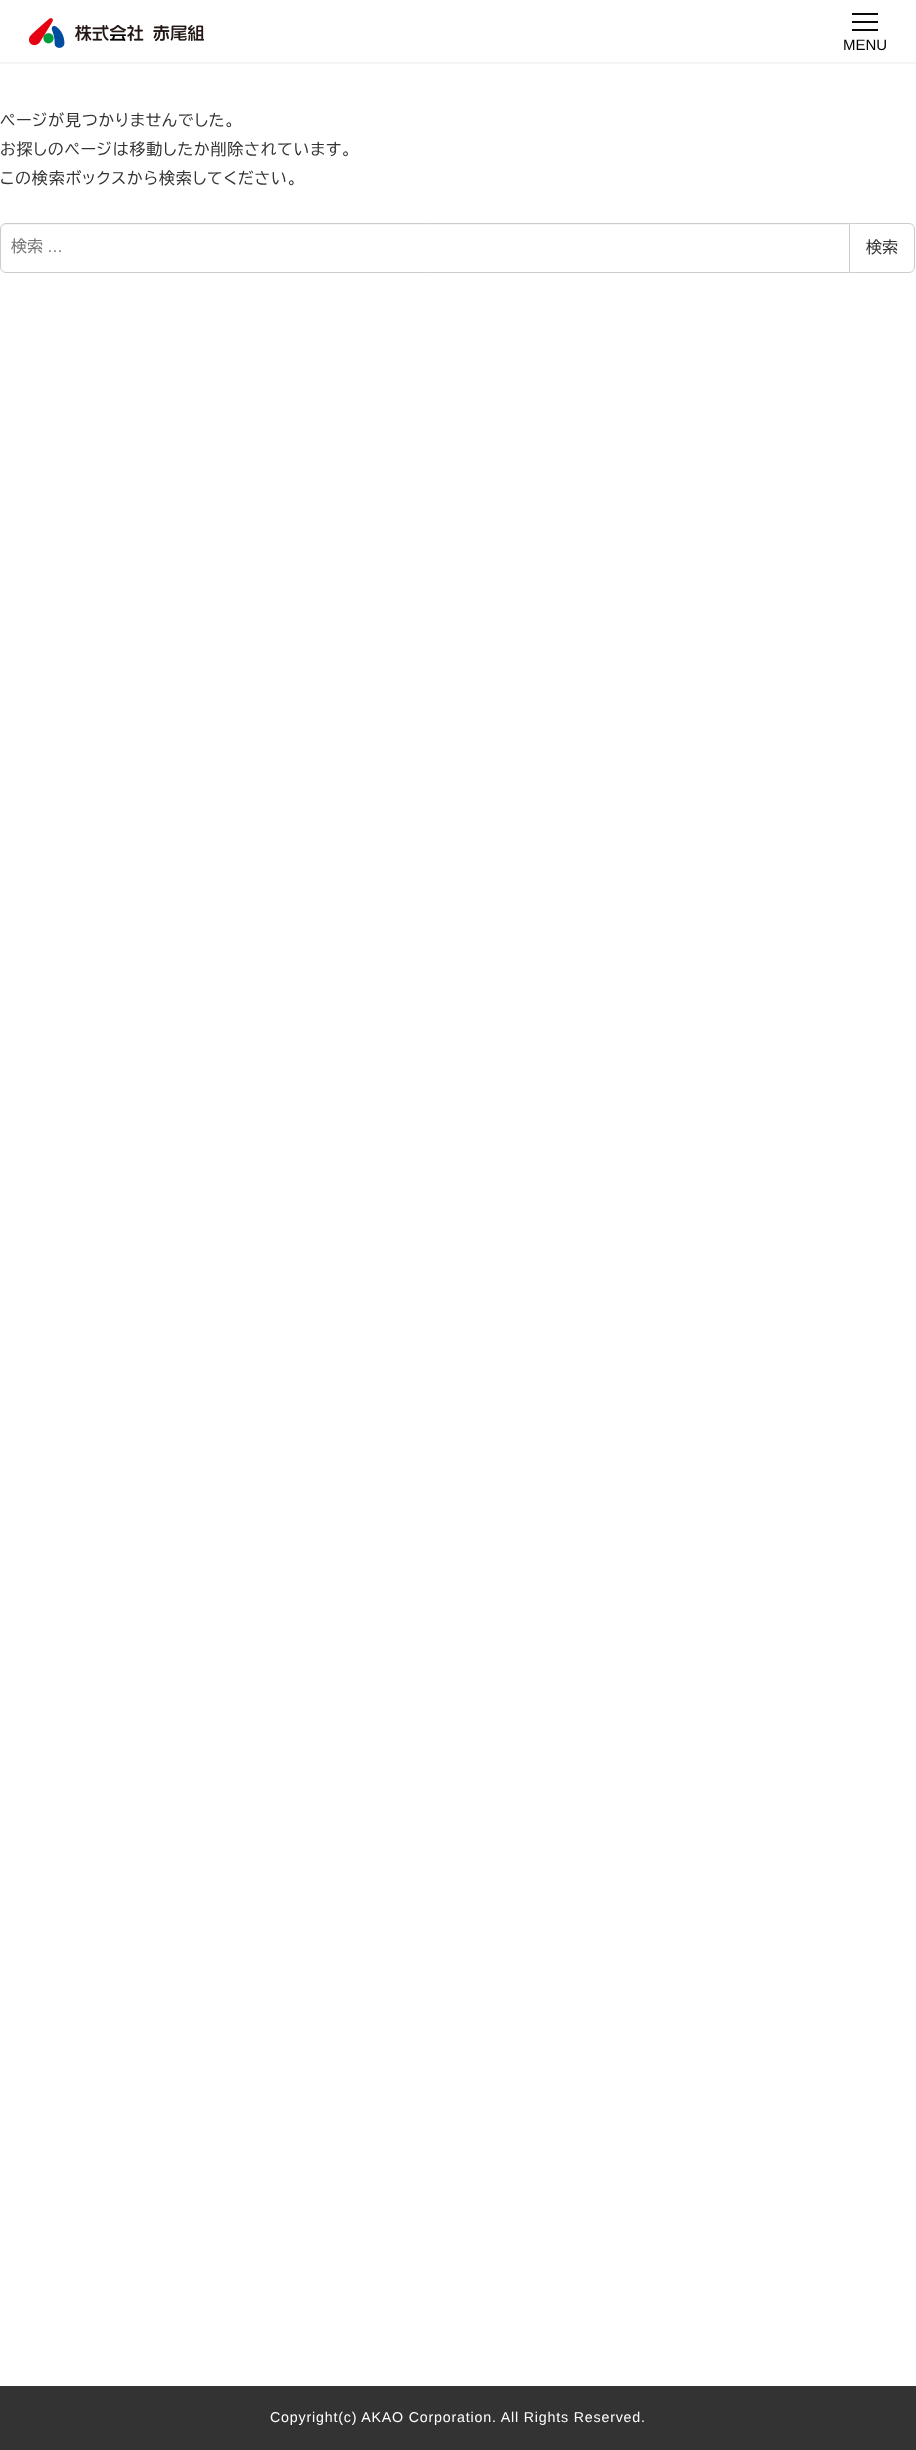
async function draw(canvas) {
  canvas.width = 916;
  canvas.height = 2450;
  const ctx = canvas.getContext('2d');
  ctx.miterLimit = 4;
  ctx.fontKerning = 'normal';
  function label(s, x, y, font, color) {
    ctx.font = font;
    ctx.fillStyle = color;
    ctx.fillText(s, x, y);
  }
  function rect(x, y, w, h, color) {
    ctx.fillStyle = color;
    ctx.fillRect(x, y, w, h);
  }
  async function image(src, x, y, w, h) {
    const img = new Image();
    img.src = src;
    await img.decode();
    ctx.drawImage(img, x, y, w, h);
  }
  let path;

  rect(0, 0, 916, 2450, '#fff');
  ctx.save();
  ctx.beginPath();
  ctx.rect(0, 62, 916, 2);
  ctx.clip();
  ctx.fillStyle = '#0000000d';
  ctx.filter = 'blur(1px)';
  ctx.beginPath();
  ctx.rect(-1, 0, 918, 64);
  ctx.fill();
  ctx.filter = 'none';
  ctx.restore();
  await image('assets/img1.png', 29, 18, 175, 30);
  rect(852, 13, 26, 2, '#0a0a0a');
  rect(852, 21, 26, 2, '#0a0a0a');
  rect(852, 29, 26, 2, '#0a0a0a');
  label('MENU', 843, 50, '15px Liberation Sans', '#000');
  ctx.letterSpacing = '0.8px';
  label('ページが見つかりませんでした。', 0, 126, '16px BIZ UDPGothic', '#333');
  label('お探しのページは移動したか削除されています。', 0, 155, '16px BIZ UDPGothic', '#333');
  label('この検索ボックスから検索してください。', 0, 184, '16px BIZ UDPGothic', '#333');
  ctx.beginPath();
  ctx.roundRect(849.5, 223.5, 65, 49, [0, 5.5, 5.5, 0]);
  ctx.strokeStyle = '#ccc';
  ctx.stroke();
  ctx.fillStyle = '#fff';
  ctx.beginPath();
  ctx.roundRect(0, 223, 850, 50, [6, 0, 0, 6]);
  ctx.fill();
  ctx.fillStyle = '#f6f6f6';
  path = new Path2D('M6 225H849V224H6C3 224 1 226 1 229V230C1 227 3 225 6 225Z');
  ctx.fill(path);
  ctx.beginPath();
  ctx.roundRect(0.5, 223.5, 849, 49, [5.5, 0, 0, 5.5]);
  ctx.stroke();
  ctx.letterSpacing = '0px';
  label('検索', 11, 252, '16px BIZ UDPGothic', '#757575');
  label('…', 47, 252, '16px Liberation Sans', '#757575');
  label('検索', 866, 253, '16px BIZ UDPGothic', '#333');
  rect(0, 2386, 916, 64, '#333');
  ctx.letterSpacing = '0.8px';
  label('Copyright(c) AKAO Corporation. All Rights Reserved.', 270, 2422, '14.25px Liberation Sans', '#fff');
}

draw(document.querySelector('canvas'));
